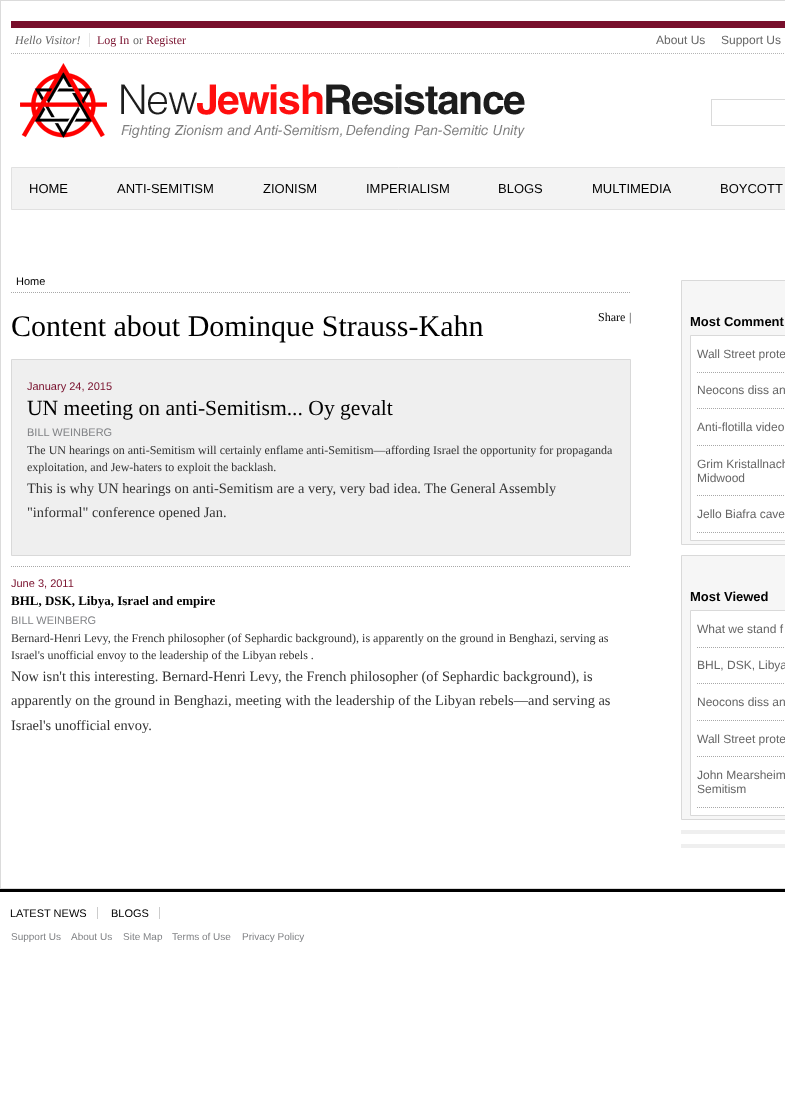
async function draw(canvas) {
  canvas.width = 785;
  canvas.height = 1110;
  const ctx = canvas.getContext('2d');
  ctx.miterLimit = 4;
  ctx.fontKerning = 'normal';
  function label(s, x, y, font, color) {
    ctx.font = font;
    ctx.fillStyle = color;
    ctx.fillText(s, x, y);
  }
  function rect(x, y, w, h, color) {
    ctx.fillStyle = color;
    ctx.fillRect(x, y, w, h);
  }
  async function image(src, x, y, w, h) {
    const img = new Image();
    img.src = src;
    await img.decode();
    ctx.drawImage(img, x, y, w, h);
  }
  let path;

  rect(0, 0, 785, 1110, '#fff');
  ctx.strokeStyle = '#dbdbdb';
  ctx.strokeRect(0.5, 0.5, 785, 888);
  rect(11, 21, 774, 7, '#780f2c');
  path = new Path2D('M11 53.5H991');
  ctx.strokeStyle = '#b5b5b5';
  ctx.setLineDash([1, 1]);
  ctx.stroke(path);
  label('Hello Visitor!', 15, 44, 'italic 12px Liberation Serif', '#666');
  rect(89, 33, 1, 14, '#e5e5e5');
  label('Log In', 97, 44, '12px Liberation Serif', '#780f2c');
  label('or', 133, 44, '12px Liberation Serif', '#666');
  label('Register', 146, 44, '12px Liberation Serif', '#780f2c');
  label('About Us', 656, 44, '12px Liberation Sans', '#666');
  label('Support Us', 721, 44, '12px Liberation Sans', '#666');
  await image('assets/img1.png', 20, 63, 505, 75);
  ctx.strokeStyle = '#dadada';
  ctx.setLineDash([]);
  ctx.strokeRect(711.5, 99.5, 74, 26);
  ctx.fillStyle = '#f3f3f3';
  ctx.beginPath();
  ctx.rect(11.5, 167.5, 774, 42);
  ctx.fill();
  ctx.strokeStyle = '#e1e1e1';
  ctx.stroke();
  label('HOME', 29, 193, '13px Liberation Sans', '#000');
  label('ANTI-SEMITISM', 117, 193, '13px Liberation Sans', '#000');
  label('ZIONISM', 263, 193, '13px Liberation Sans', '#000');
  label('IMPERIALISM', 366, 193, '13px Liberation Sans', '#000');
  label('BLOGS', 498, 193, '13px Liberation Sans', '#000');
  label('MULTIMEDIA', 592, 193, '13px Liberation Sans', '#000');
  label('BOYCOTT', 720, 193, '13px Liberation Sans', '#000');
  path = new Path2D('M11 292.5H631');
  ctx.strokeStyle = '#a8a8a8';
  ctx.setLineDash([1, 1]);
  ctx.stroke(path);
  label('Home', 16, 285, '11px Liberation Sans', '#000');
  label('Content about Dominque Strauss-Kahn', 11, 336, '30px Liberation Serif', '#000');
  label('Share', 598, 321, '12px Liberation Serif', '#000');
  label('|', 629, 321, '12px Liberation Serif', '#333');
  ctx.fillStyle = '#efefef';
  ctx.beginPath();
  ctx.rect(11.5, 359.5, 619, 196);
  ctx.fill();
  ctx.strokeStyle = '#d9d9d9';
  ctx.setLineDash([]);
  ctx.stroke();
  label('January 24, 2015', 27, 390, '11px Liberation Sans', '#780f2c');
  label('UN meeting on anti-Semitism... Oy gevalt', 27, 415, '21.6px Liberation Serif', '#000');
  label('BILL WEINBERG', 27, 436, '11px Liberation Sans', '#808285');
  label('The UN hearings on anti-Semitism will certainly enflame anti-Semitism—affording Israel the opportunity for propaganda', 27, 454, '12px Liberation Serif', '#333');
  label('exploitation, and Jew-haters to exploit the backlash.', 27, 471, '12px Liberation Serif', '#333');
  label('This is why UN hearings on anti-Semitism are a very, very bad idea. The General Assembly', 27, 493, '14.4px Liberation Serif', '#333');
  label('"informal" conference opened Jan.', 27, 517, '14.4px Liberation Serif', '#333');
  path = new Path2D('M11 566.5H631');
  ctx.strokeStyle = '#a8a8a8';
  ctx.setLineDash([1, 1]);
  ctx.stroke(path);
  label('June 3, 2011', 11, 587, '11px Liberation Sans', '#780f2c');
  label('BHL, DSK, Libya, Israel and empire', 11, 605, 'bold 13px Liberation Serif', '#000');
  label('BILL WEINBERG', 11, 624, '11px Liberation Sans', '#808285');
  label('Bernard-Henri Levy, the French philosopher (of Sephardic background), is apparently on the ground in Benghazi, serving as', 11, 642, '12px Liberation Serif', '#333');
  label('Israel\'s unofficial envoy to the leadership of the Libyan rebels .', 11, 659, '12px Liberation Serif', '#333');
  label('Now isn\'t this interesting. Bernard-Henri Levy, the French philosopher (of Sephardic background), is', 11, 681, '14.4px Liberation Serif', '#333');
  label('apparently on the ground in Benghazi, meeting with the leadership of the Libyan rebels—and serving as', 11, 705, '14.4px Liberation Serif', '#333');
  label('Israel\'s unofficial envoy.', 11, 730, '14.4px Liberation Serif', '#333');
  ctx.fillStyle = '#f6f6f6';
  ctx.beginPath();
  ctx.rect(681.5, 280.5, 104, 264);
  ctx.fill();
  ctx.strokeStyle = '#d9d9d9';
  ctx.setLineDash([]);
  ctx.stroke();
  label('Most Comment', 690, 326, 'bold 13px Liberation Sans', '#000');
  ctx.fillStyle = '#fff';
  ctx.beginPath();
  ctx.rect(690.5, 335.5, 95, 205);
  ctx.fill();
  ctx.stroke();
  path = new Path2D('M697 372.5H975');
  ctx.strokeStyle = '#a8a8a8';
  ctx.setLineDash([1, 1]);
  ctx.stroke(path);
  label('Wall Street prote', 697, 358, '12px Liberation Sans', '#666');
  path = new Path2D('M697 408.5H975');
  ctx.stroke(path);
  label('Neocons diss an', 697, 394, '12px Liberation Sans', '#666');
  path = new Path2D('M697 445.5H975');
  ctx.stroke(path);
  label('Anti-flotilla video', 697, 431, '12px Liberation Sans', '#666');
  path = new Path2D('M697 495.5H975');
  ctx.stroke(path);
  label('Grim Kristallnach', 697, 468, '12px Liberation Sans', '#666');
  label('Midwood', 697, 482, '12px Liberation Sans', '#666');
  path = new Path2D('M697 532.5H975');
  ctx.stroke(path);
  label('Jello Biafra cave', 697, 518, '12px Liberation Sans', '#666');
  ctx.fillStyle = '#f6f6f6';
  ctx.beginPath();
  ctx.rect(681.5, 555.5, 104, 264);
  ctx.fill();
  ctx.strokeStyle = '#d9d9d9';
  ctx.setLineDash([]);
  ctx.stroke();
  label('Most Viewed', 690, 601, 'bold 13px Liberation Sans', '#000');
  ctx.fillStyle = '#fff';
  ctx.beginPath();
  ctx.rect(690.5, 610.5, 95, 205);
  ctx.fill();
  ctx.stroke();
  path = new Path2D('M697 647.5H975');
  ctx.strokeStyle = '#a8a8a8';
  ctx.setLineDash([1, 1]);
  ctx.stroke(path);
  label('What we stand f', 697, 633, '12px Liberation Sans', '#666');
  path = new Path2D('M697 683.5H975');
  ctx.stroke(path);
  label('BHL, DSK, Libya', 697, 669, '12px Liberation Sans', '#666');
  path = new Path2D('M697 720.5H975');
  ctx.stroke(path);
  label('Neocons diss an', 697, 706, '12px Liberation Sans', '#666');
  path = new Path2D('M697 756.5H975');
  ctx.stroke(path);
  label('Wall Street prote', 697, 743, '12px Liberation Sans', '#666');
  path = new Path2D('M697 807.5H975');
  ctx.stroke(path);
  label('John Mearsheim', 697, 779, '12px Liberation Sans', '#666');
  label('Semitism', 697, 793, '12px Liberation Sans', '#666');
  rect(681, 830, 104, 4, '#efefef');
  rect(681, 844, 104, 4, '#efefef');
  rect(0, 889, 785, 3, '#000');
  label('LATEST NEWS', 10, 917, '11px Liberation Sans', '#000');
  rect(97, 907, 1, 12, '#ccc');
  label('BLOGS', 111, 917, '11px Liberation Sans', '#000');
  rect(159, 907, 1, 12, '#ccc');
  label('Support Us', 11, 940, '10px Liberation Sans', '#808285');
  label('About Us', 71, 940, '10px Liberation Sans', '#808285');
  label('Site Map', 123, 940, '10px Liberation Sans', '#808285');
  label('Terms of Use', 172, 940, '10px Liberation Sans', '#808285');
  label('Privacy Policy', 242, 940, '10px Liberation Sans', '#808285');
}

draw(document.querySelector('canvas'));
